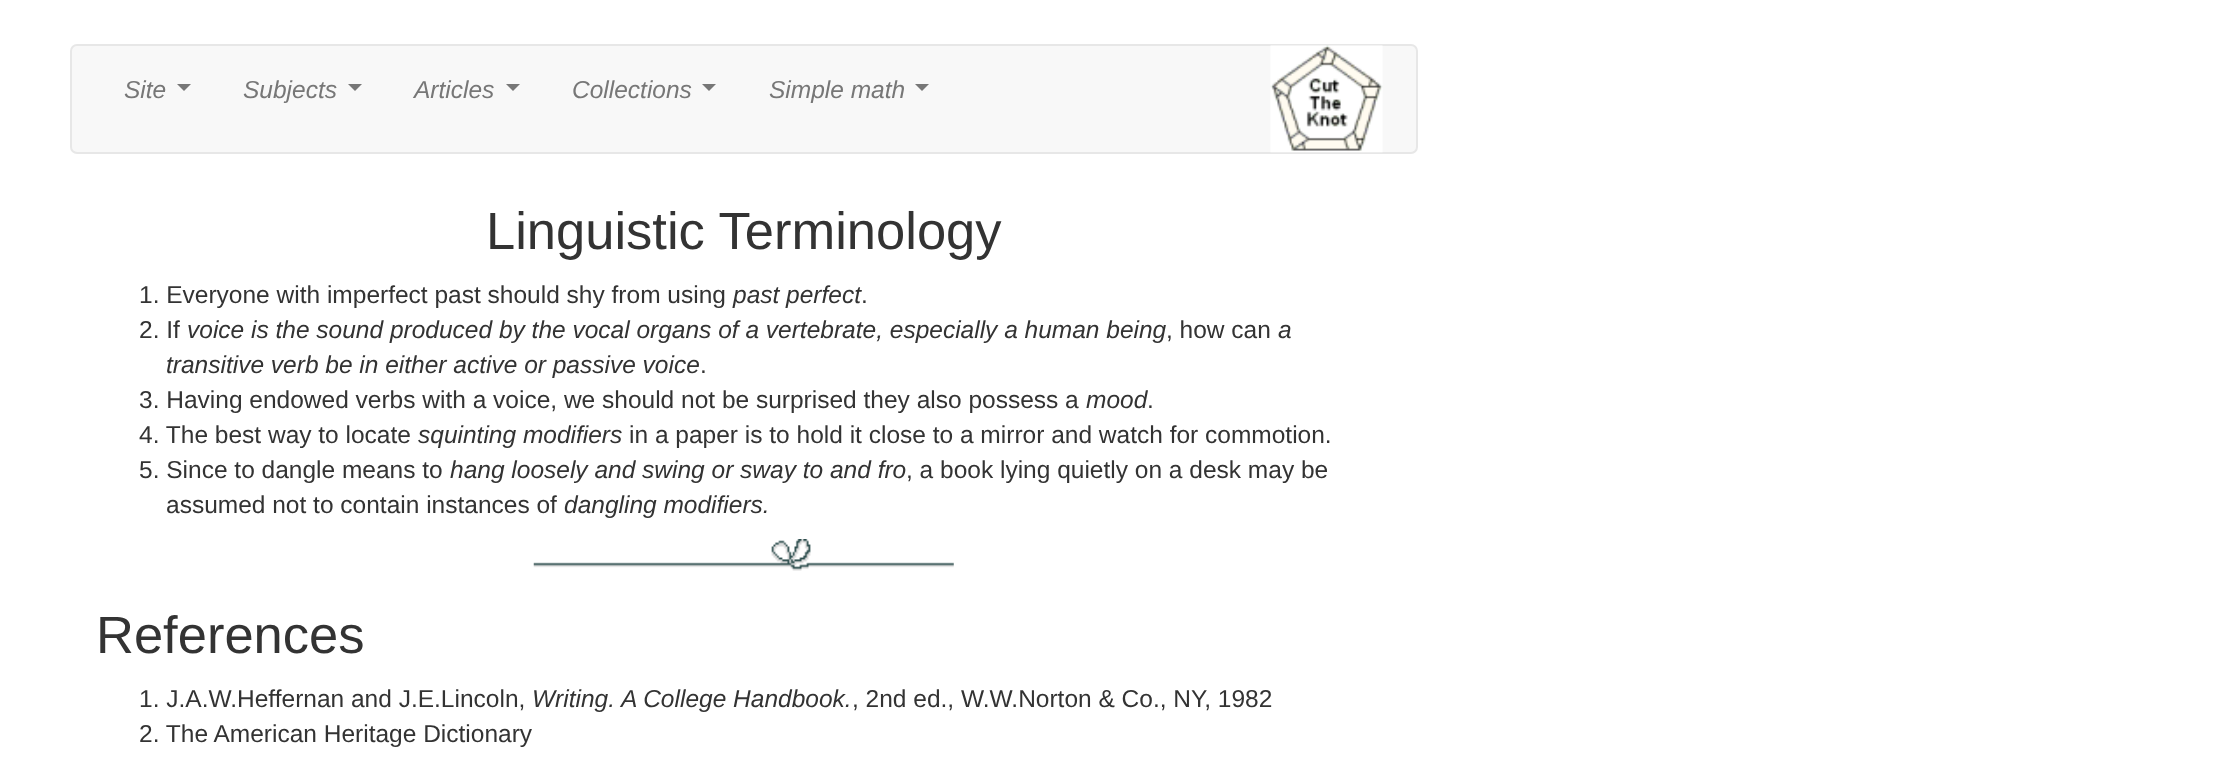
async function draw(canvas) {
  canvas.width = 2224;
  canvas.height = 758;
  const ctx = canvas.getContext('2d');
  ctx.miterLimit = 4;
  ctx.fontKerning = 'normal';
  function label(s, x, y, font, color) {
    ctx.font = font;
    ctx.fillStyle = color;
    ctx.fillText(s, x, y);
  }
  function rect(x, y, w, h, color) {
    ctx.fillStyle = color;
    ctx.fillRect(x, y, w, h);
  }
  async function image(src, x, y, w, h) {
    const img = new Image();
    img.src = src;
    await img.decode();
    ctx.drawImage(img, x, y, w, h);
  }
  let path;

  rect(0, 0, 2224, 758, '#fff');
  ctx.fillStyle = '#f8f8f8';
  ctx.beginPath();
  ctx.roundRect(71, 45, 1346, 108, 6);
  ctx.fill();
  ctx.strokeStyle = '#e7e7e7';
  ctx.lineWidth = 2;
  ctx.stroke();
  label('Site', 124, 98, 'italic 24.5px Liberation Sans', '#777');
  path = new Path2D('M177 84H191L184 91Z');
  ctx.fill(path);
  label('Subjects', 243, 98, 'italic 24.5px Liberation Sans', '#777');
  path = new Path2D('M348 84H362L355 91Z');
  ctx.fill(path);
  label('Articles', 414, 98, 'italic 24.5px Liberation Sans', '#777');
  path = new Path2D('M506 84H520L513 91Z');
  ctx.fill(path);
  label('Collections', 572, 98, 'italic 24.5px Liberation Sans', '#777');
  path = new Path2D('M702 84H716L709 91Z');
  ctx.fill(path);
  label('Simple math', 769, 98, 'italic 24.5px Liberation Sans', '#777');
  path = new Path2D('M915 84H929L922 91Z');
  ctx.fill(path);
  await image('assets/img1.png', 1270, 45, 113, 108);
  label('Linguistic Terminology', 486, 249, '52.5px Liberation Sans', '#333');
  label('1. Everyone with imperfect past should shy from using', 139, 303, '24.5px Liberation Sans', '#333');
  label('past perfect', 733, 303, 'italic 24.5px Liberation Sans', '#333');
  label('.', 861, 303, '24.5px Liberation Sans', '#333');
  label('2. If', 139, 338, '24.5px Liberation Sans', '#333');
  label('voice is the sound produced by the vocal organs of a vertebrate, especially a human being', 187, 338, 'italic 24.5px Liberation Sans', '#333');
  label(', how can', 1166, 338, '24.5px Liberation Sans', '#333');
  label('a', 1278, 338, 'italic 24.5px Liberation Sans', '#333');
  label('transitive verb be in either active or passive voice', 166, 373, 'italic 24.5px Liberation Sans', '#333');
  label('.', 700, 373, '24.5px Liberation Sans', '#333');
  label('3. Having endowed verbs with a voice, we should not be surprised they also possess a', 139, 408, '24.5px Liberation Sans', '#333');
  label('mood', 1086, 408, 'italic 24.5px Liberation Sans', '#333');
  label('.', 1147, 408, '24.5px Liberation Sans', '#333');
  label('4. The best way to locate', 139, 443, '24.5px Liberation Sans', '#333');
  label('squinting modifiers', 418, 443, 'italic 24.5px Liberation Sans', '#333');
  label('in a paper is to hold it close to a mirror and watch for commotion.', 629, 443, '24.5px Liberation Sans', '#333');
  label('5. Since to dangle means to', 139, 478, '24.5px Liberation Sans', '#333');
  label('hang loosely and swing or sway to and fro', 450, 478, 'italic 24.5px Liberation Sans', '#333');
  label(', a book lying quietly on a desk may be', 906, 478, '24.5px Liberation Sans', '#333');
  label('assumed not to contain instances of', 166, 513, '24.5px Liberation Sans', '#333');
  label('dangling modifiers.', 564, 513, 'italic 24.5px Liberation Sans', '#333');
  await image('assets/img2.png', 533, 539, 421, 32);
  label('References', 96, 653, '52.5px Liberation Sans', '#333');
  label('1. J.A.W.Heffernan and J.E.Lincoln,', 139, 707, '24.5px Liberation Sans', '#333');
  label('Writing. A College Handbook.', 532, 707, 'italic 24.5px Liberation Sans', '#333');
  label(', 2nd ed., W.W.Norton & Co., NY, 1982', 852, 707, '24.5px Liberation Sans', '#333');
  label('2. The American Heritage Dictionary', 139, 742, '24.5px Liberation Sans', '#333');
}

draw(document.querySelector('canvas'));
